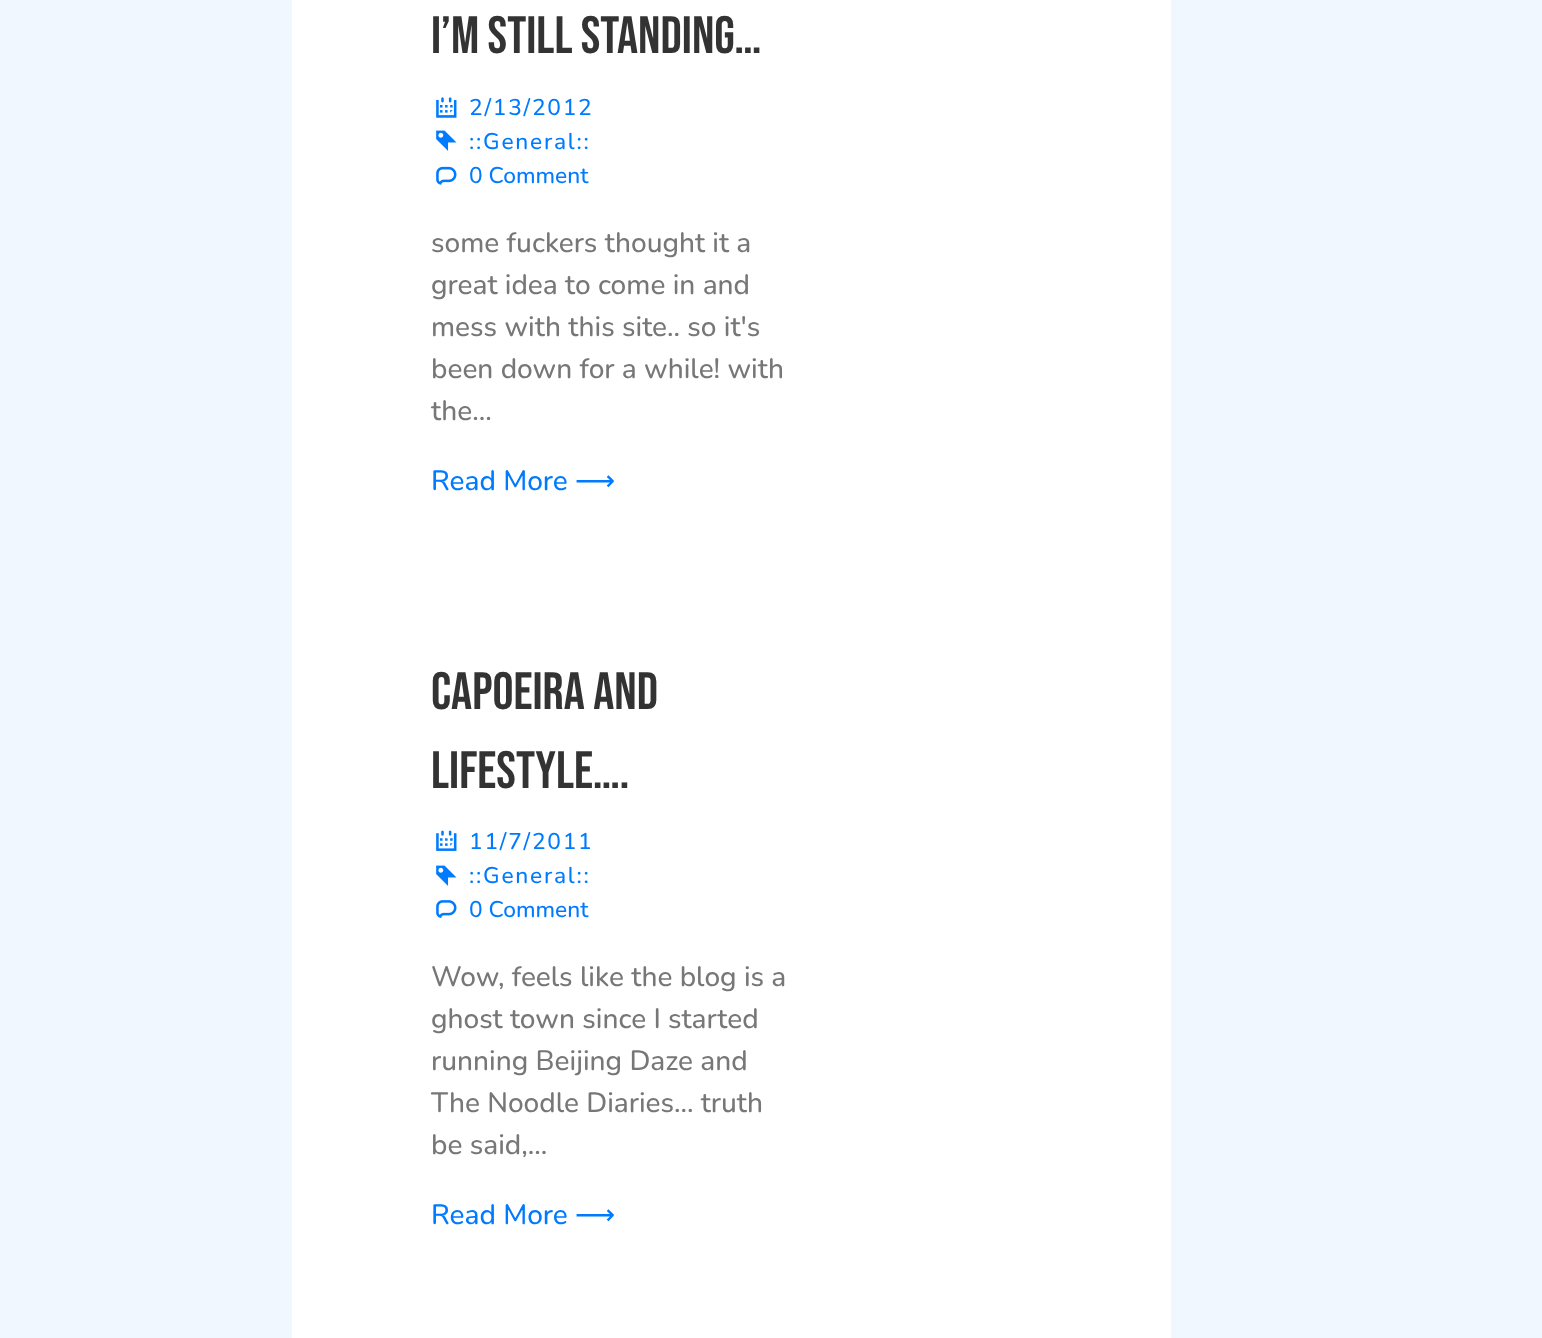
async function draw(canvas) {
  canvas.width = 1542;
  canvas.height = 1338;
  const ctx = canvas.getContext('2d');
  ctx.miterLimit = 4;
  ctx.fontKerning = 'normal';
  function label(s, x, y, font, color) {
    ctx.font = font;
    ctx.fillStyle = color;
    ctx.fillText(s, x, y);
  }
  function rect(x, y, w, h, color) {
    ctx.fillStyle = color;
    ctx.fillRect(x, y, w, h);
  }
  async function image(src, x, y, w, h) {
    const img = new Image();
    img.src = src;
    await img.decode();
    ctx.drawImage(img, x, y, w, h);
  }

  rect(0, 0, 1542, 1338, '#fff');
  rect(0, 0, 292, 1338, '#f0f7fe');
  label('I’m still standing…', 431, 53, '52.5px Bebas Neue', '#333');
  await image('assets/img1.png', 436, 97, 21, 21);
  ctx.letterSpacing = '1.75px';
  label('2/13/2012', 469, 115, '500 22.75px Nunito', '#007bff');
  await image('assets/img2.png', 436, 130, 21, 21);
  label('::General::', 469, 149, '500 22.75px Nunito', '#007bff');
  await image('assets/img3.png', 436, 166, 21, 19);
  ctx.letterSpacing = '0px';
  label('0 Comment', 469, 183, '500 22.75px Nunito', '#007bff');
  label('some fuckers thought it a', 431, 252, '500 28px Nunito', '#777');
  label('great idea to come in and', 431, 294, '500 28px Nunito', '#777');
  label('mess with this site.. so it\'s', 431, 336, '500 28px Nunito', '#777');
  label('been down for a while! with', 431, 378, '500 28px Nunito', '#777');
  label('the...', 431, 420, '500 28px Nunito', '#777');
  label('Read More', 431, 490, '500 28px Nunito', '#007bff');
  label('⟶', 575, 490, '28px DejaVu Sans', '#007bff');
  label('Capoeira and', 431, 709, '52.5px Bebas Neue', '#333');
  label('Lifestyle….', 431, 788, '52.5px Bebas Neue', '#333');
  await image('assets/img4.png', 436, 830, 21, 21);
  ctx.letterSpacing = '1.75px';
  label('11/7/2011', 469, 849, '500 22.75px Nunito', '#007bff');
  await image('assets/img2.png', 436, 865, 21, 21);
  label('::General::', 469, 883, '500 22.75px Nunito', '#007bff');
  await image('assets/img5.png', 436, 900, 21, 18);
  ctx.letterSpacing = '0px';
  label('0 Comment', 469, 917, '500 22.75px Nunito', '#007bff');
  label('Wow, feels like the blog is a', 431, 986, '500 28px Nunito', '#777');
  label('ghost town since I started', 431, 1028, '500 28px Nunito', '#777');
  label('running Beijing Daze and', 431, 1070, '500 28px Nunito', '#777');
  label('The Noodle Diaries... truth', 431, 1112, '500 28px Nunito', '#777');
  label('be said,...', 431, 1154, '500 28px Nunito', '#777');
  label('Read More', 431, 1224, '500 28px Nunito', '#007bff');
  label('⟶', 575, 1224, '28px DejaVu Sans', '#007bff');
  rect(1171, 0, 371, 1338, '#f0f7fe');
}

draw(document.querySelector('canvas'));
